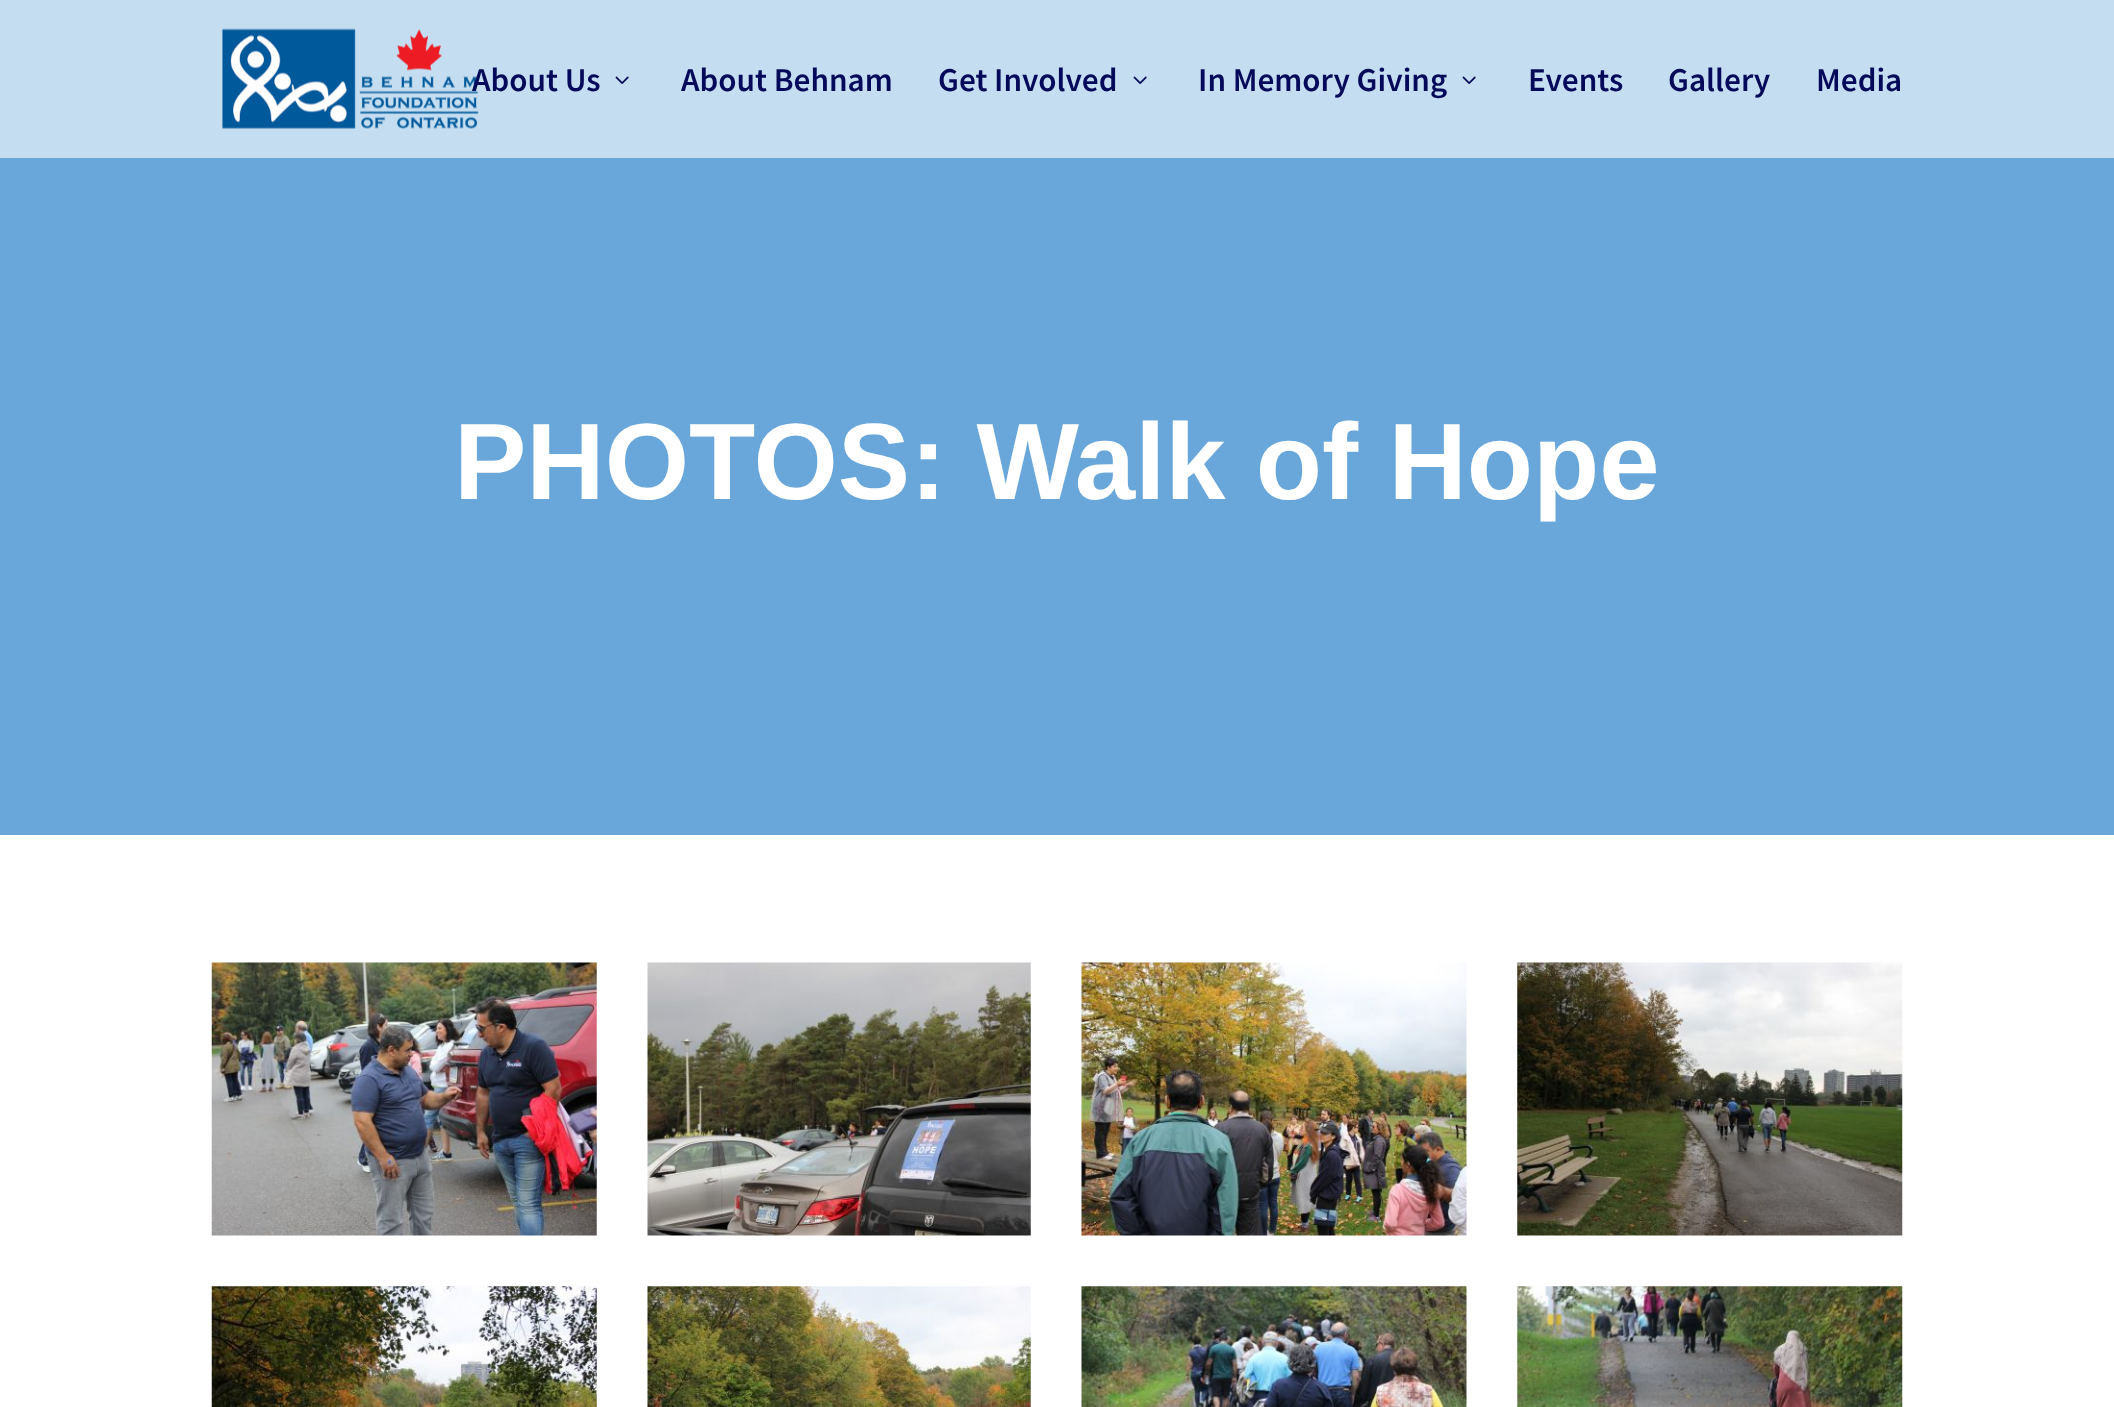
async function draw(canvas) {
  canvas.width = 2114;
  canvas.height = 1407;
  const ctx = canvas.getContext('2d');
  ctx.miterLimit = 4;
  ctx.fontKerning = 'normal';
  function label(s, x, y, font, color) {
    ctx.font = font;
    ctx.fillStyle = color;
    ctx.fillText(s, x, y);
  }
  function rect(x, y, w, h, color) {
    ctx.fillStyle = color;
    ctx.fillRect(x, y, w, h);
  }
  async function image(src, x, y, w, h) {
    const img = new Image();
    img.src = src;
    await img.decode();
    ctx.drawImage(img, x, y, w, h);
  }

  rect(0, 0, 2114, 1407, '#fff');
  rect(0, 0, 2114, 158, '#c4ddf0');
  await image('assets/img1.png', 222, 28, 257, 101);
  label('About Us', 472, 91, '600 33.25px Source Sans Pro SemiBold', '#050959');
  await image('assets/img2.png', 615, 76, 14, 8);
  label('About Behnam', 681, 91, '600 33.25px Source Sans Pro SemiBold', '#050959');
  label('Get Involved', 938, 91, '600 33.25px Source Sans Pro SemiBold', '#050959');
  await image('assets/img2.png', 1133, 76, 14, 8);
  label('In Memory Giving', 1198, 91, '600 33.25px Source Sans Pro SemiBold', '#050959');
  await image('assets/img2.png', 1462, 76, 14, 8);
  label('Events', 1528, 91, '600 33.25px Source Sans Pro SemiBold', '#050959');
  label('Gallery', 1668, 91, '600 33.25px Source Sans Pro SemiBold', '#050959');
  label('Media', 1816, 91, '600 33.25px Source Sans Pro SemiBold', '#050959');
  rect(0, 158, 2114, 677, '#69a7da');
  label('PHOTOS: Walk of Hope', 454, 499, 'bold 108.5px Liberation Sans', '#fff');
  await image('assets/img3.png', 211, 962, 386, 274);
  await image('assets/img4.png', 647, 962, 384, 274);
  await image('assets/img5.png', 1081, 962, 386, 274);
  await image('assets/img6.png', 1517, 962, 386, 274);
  await image('assets/img7.png', 211, 1286, 386, 121);
  await image('assets/img8.png', 647, 1286, 384, 121);
  await image('assets/img9.png', 1081, 1286, 386, 121);
  await image('assets/img10.png', 1517, 1286, 386, 121);
}

draw(document.querySelector('canvas'));
